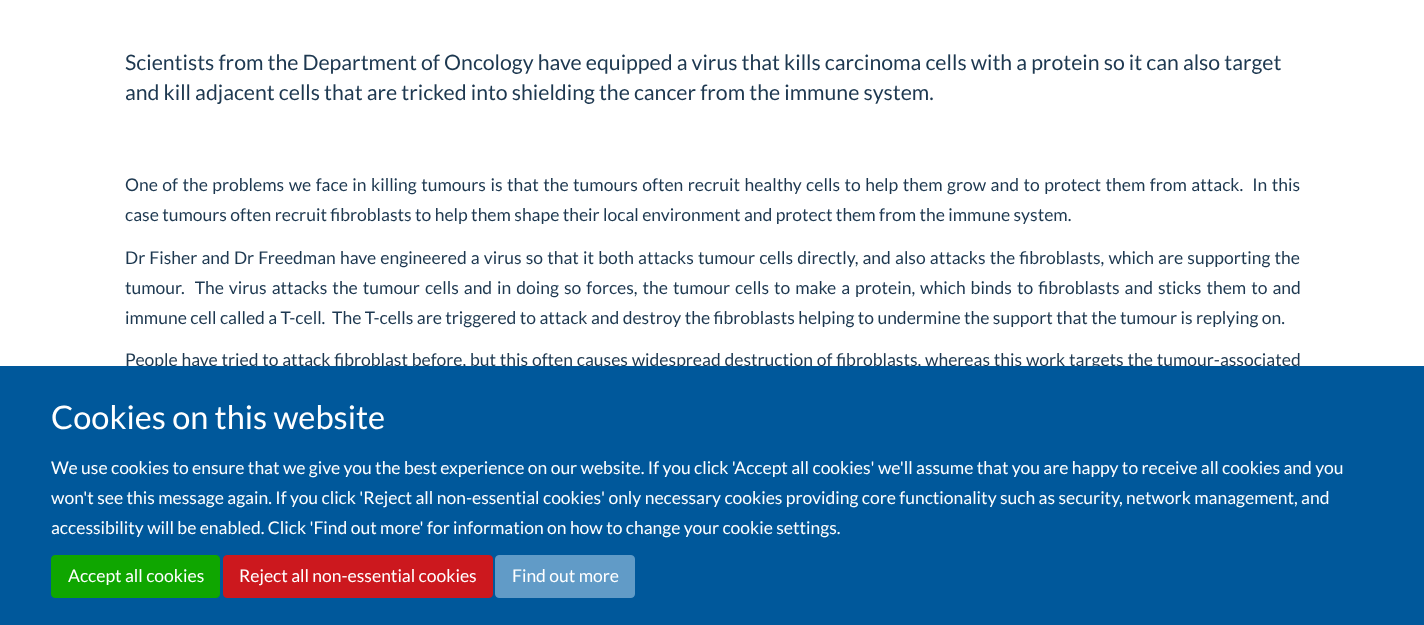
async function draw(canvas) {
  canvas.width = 1424;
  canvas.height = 625;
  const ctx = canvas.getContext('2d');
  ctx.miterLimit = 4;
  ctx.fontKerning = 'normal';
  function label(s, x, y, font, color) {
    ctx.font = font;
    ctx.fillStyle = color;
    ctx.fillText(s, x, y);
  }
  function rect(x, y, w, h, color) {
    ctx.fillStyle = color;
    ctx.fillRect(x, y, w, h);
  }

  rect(0, 0, 1424, 625, '#fff');
  label('Scientists from the Department of Oncology have equipped a virus that kills carcinoma cells with a protein so it can also target', 125, 70, '21.25px Lato', '#1d3850');
  label('and kill adjacent cells that are tricked into shielding the cancer from the immune system.', 125, 100, '21.25px Lato', '#1d3850');
  ctx.wordSpacing = '1.1px';
  label('One of the problems we face in killing tumours is that the tumours often recruit healthy cells to help them grow and to protect them from attack.  In this', 125, 191, '17.5px Lato', '#1d3850');
  ctx.wordSpacing = '0px';
  label('case tumours often recruit fibroblasts to help them shape their local environment and protect them from the immune system.', 125, 221, '17.5px Lato', '#1d3850');
  ctx.wordSpacing = '0.75px';
  label('Dr Fisher and Dr Freedman have engineered a virus so that it both attacks tumour cells directly, and also attacks the fibroblasts, which are supporting the', 125, 264, '17.5px Lato', '#1d3850');
  ctx.wordSpacing = '1.6px';
  label('tumour.  The virus attacks the tumour cells and in doing so forces, the tumour cells to make a protein, which binds to fibroblasts and sticks them to and', 125, 294, '17.5px Lato', '#1d3850');
  ctx.wordSpacing = '0px';
  label('immune cell called a T-cell.  The T-cells are triggered to attack and destroy the fibroblasts helping to undermine the support that the tumour is replying on.', 125, 324, '17.5px Lato', '#1d3850');
  ctx.wordSpacing = '0.4px';
  label('People have tried to attack fibroblast before, but this often causes widespread destruction of fibroblasts, whereas this work targets the tumour-associated', 125, 366, '17.5px Lato', '#1d3850');
  rect(0, 366, 1424, 259, '#00589b');
  ctx.wordSpacing = '0px';
  label('Cookies on this website', 51, 429, '32.5px Lato', '#fff');
  label('We use cookies to ensure that we give you the best experience on our website. If you click \'Accept all cookies\' we\'ll assume that you are happy to receive all cookies and you', 51, 474, '17.5px Lato', '#fff');
  label('won\'t see this message again. If you click \'Reject all non-essential cookies\' only necessary cookies providing core functionality such as security, network management, and', 51, 504, '17.5px Lato', '#fff');
  label('accessibility will be enabled. Click \'Find out more\' for information on how to change your cookie settings.', 51, 534, '17.5px Lato', '#fff');
  ctx.fillStyle = '#0fa600';
  ctx.beginPath();
  ctx.roundRect(51.5, 555.5, 168, 42, 3.5);
  ctx.fill();
  ctx.strokeStyle = '#0fa600';
  ctx.stroke();
  label('Accept all cookies', 68, 582, '17.5px Lato', '#fff');
  ctx.fillStyle = '#cc181e';
  ctx.beginPath();
  ctx.roundRect(223.5, 555.5, 269, 42, 3.5);
  ctx.fill();
  ctx.strokeStyle = '#cc181e';
  ctx.stroke();
  label('Reject all non-essential cookies', 239, 582, '17.5px Lato', '#fff');
  ctx.fillStyle = '#619bc7';
  ctx.beginPath();
  ctx.roundRect(495.5, 555.5, 139, 42, 3.5);
  ctx.fill();
  ctx.strokeStyle = '#619bc7';
  ctx.stroke();
  label('Find out more', 512, 582, '17.5px Lato', '#fff');
}

draw(document.querySelector('canvas'));
